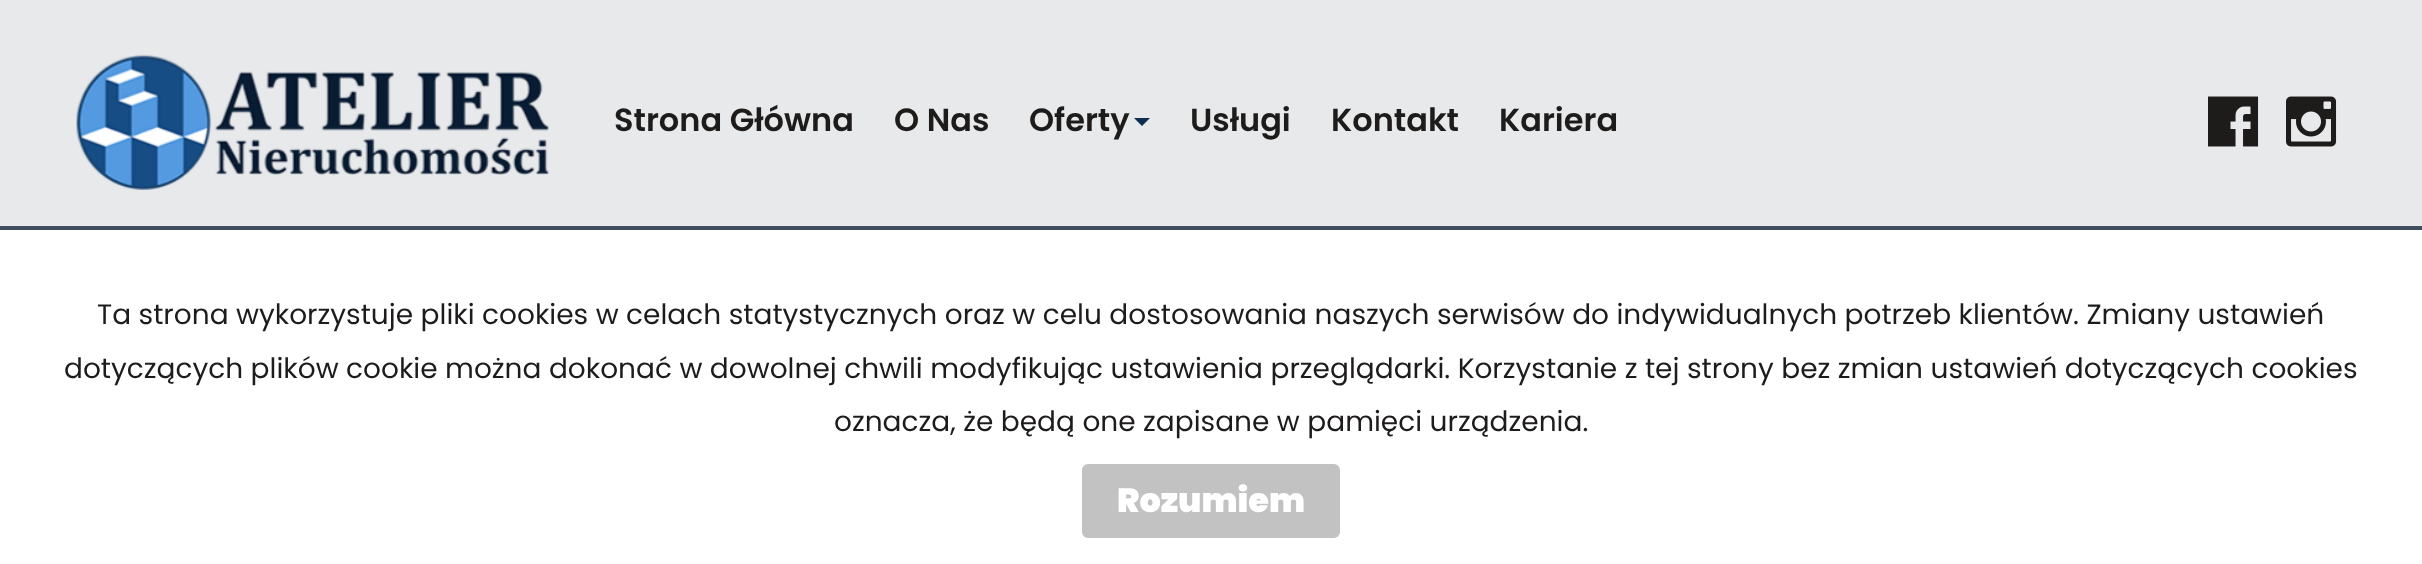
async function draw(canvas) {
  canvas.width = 2422;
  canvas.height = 564;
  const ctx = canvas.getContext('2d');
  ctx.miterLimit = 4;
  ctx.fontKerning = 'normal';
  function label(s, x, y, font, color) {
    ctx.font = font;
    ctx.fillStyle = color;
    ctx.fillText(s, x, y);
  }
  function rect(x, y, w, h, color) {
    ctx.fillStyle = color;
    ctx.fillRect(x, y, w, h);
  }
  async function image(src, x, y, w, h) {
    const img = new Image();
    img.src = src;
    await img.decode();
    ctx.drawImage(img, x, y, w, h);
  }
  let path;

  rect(0, 0, 2422, 564, '#131f36');
  rect(0, 0, 2422, 226, '#ffffffe6');
  await image('assets/img1.png', 76, 54, 473, 136);
  label('Strona Główna', 614, 131, '600 32px Poppins', '#1e1b1b');
  label('O Nas', 894, 131, '600 32px Poppins', '#1e1b1b');
  label('Oferty', 1029, 131, '600 32px Poppins', '#1e1b1b');
  ctx.fillStyle = '#0e2d50';
  path = new Path2D('M1134 118H1150L1142 126Z');
  ctx.fill(path);
  label('Usługi', 1190, 131, '600 32px Poppins', '#1e1b1b');
  label('Kontakt', 1331, 131, '600 32px Poppins', '#1e1b1b');
  label('Kariera', 1499, 131, '600 32px Poppins', '#1e1b1b');
  await image('assets/img2.png', 2208, 96, 51, 51);
  await image('assets/img3.png', 2286, 96, 51, 51);
  rect(0, 230, 2422, 334, '#fff');
  rect(0, 226, 2422, 4, '#414c5e');
  label('Ta strona wykorzystuje pliki cookies w celach statystycznych oraz w celu dostosowania naszych serwisów do indywidualnych potrzeb klientów. Zmiany ustawień', 97, 324, '28px Poppins', '#1e1b1b');
  label('dotyczących plików cookie można dokonać w dowolnej chwili modyfikując ustawienia przeglądarki. Korzystanie z tej strony bez zmian ustawień dotyczących cookies', 64, 378, '28px Poppins', '#1e1b1b');
  label('oznacza, że będą one zapisane w pamięci urządzenia.', 834, 431, '28px Poppins', '#1e1b1b');
  ctx.fillStyle = '#c3c2c2';
  ctx.beginPath();
  ctx.roundRect(1084, 466, 254, 70, 4);
  ctx.fill();
  ctx.strokeStyle = '#c3c2c2';
  ctx.lineWidth = 4;
  ctx.stroke();
  label('Rozumiem', 1117, 512, '900 33.5px Poppins', '#fff');
}

draw(document.querySelector('canvas'));
